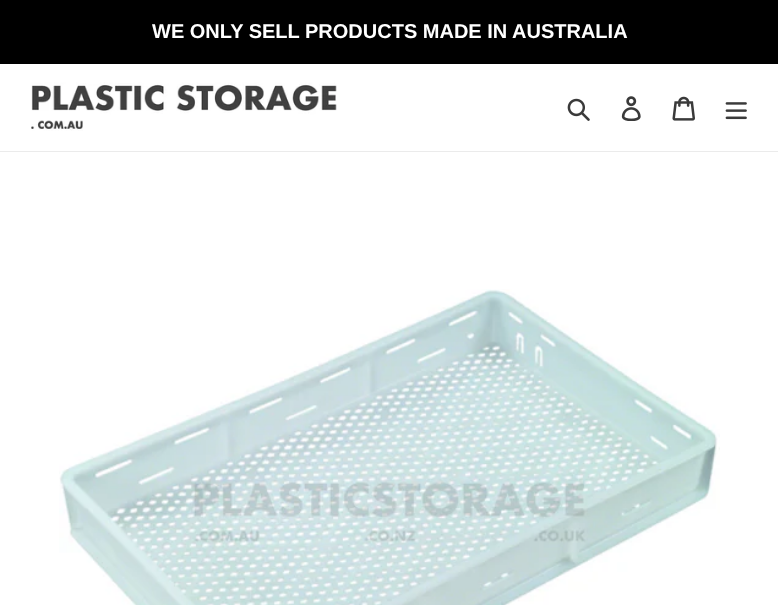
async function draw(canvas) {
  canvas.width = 778;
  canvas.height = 605;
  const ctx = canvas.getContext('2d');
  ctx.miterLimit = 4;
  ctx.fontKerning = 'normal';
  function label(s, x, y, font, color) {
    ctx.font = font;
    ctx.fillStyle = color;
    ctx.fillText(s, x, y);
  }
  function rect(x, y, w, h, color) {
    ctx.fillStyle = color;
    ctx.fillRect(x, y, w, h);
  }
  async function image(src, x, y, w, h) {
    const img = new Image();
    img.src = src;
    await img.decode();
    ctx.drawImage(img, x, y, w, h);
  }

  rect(0, 0, 778, 605, '#fff');
  rect(0, 0, 778, 64, '#000');
  label('WE ONLY SELL PRODUCTS MADE IN AUSTRALIA', 152, 38, 'bold 20px Liberation Sans', '#fff');
  rect(0, 151, 778, 1, '#ebebeb');
  await image('assets/img1.png', 31, 82, 306, 49);
  await image('assets/img2.png', 567, 98, 23, 23);
  await image('assets/img3.png', 621, 96, 20, 25);
  await image('assets/img4.png', 672, 96, 23, 25);
  await image('assets/img5.png', 725, 102, 22, 18);
  await image('assets/img6.png', 59, 289, 661, 316);
}

draw(document.querySelector('canvas'));
